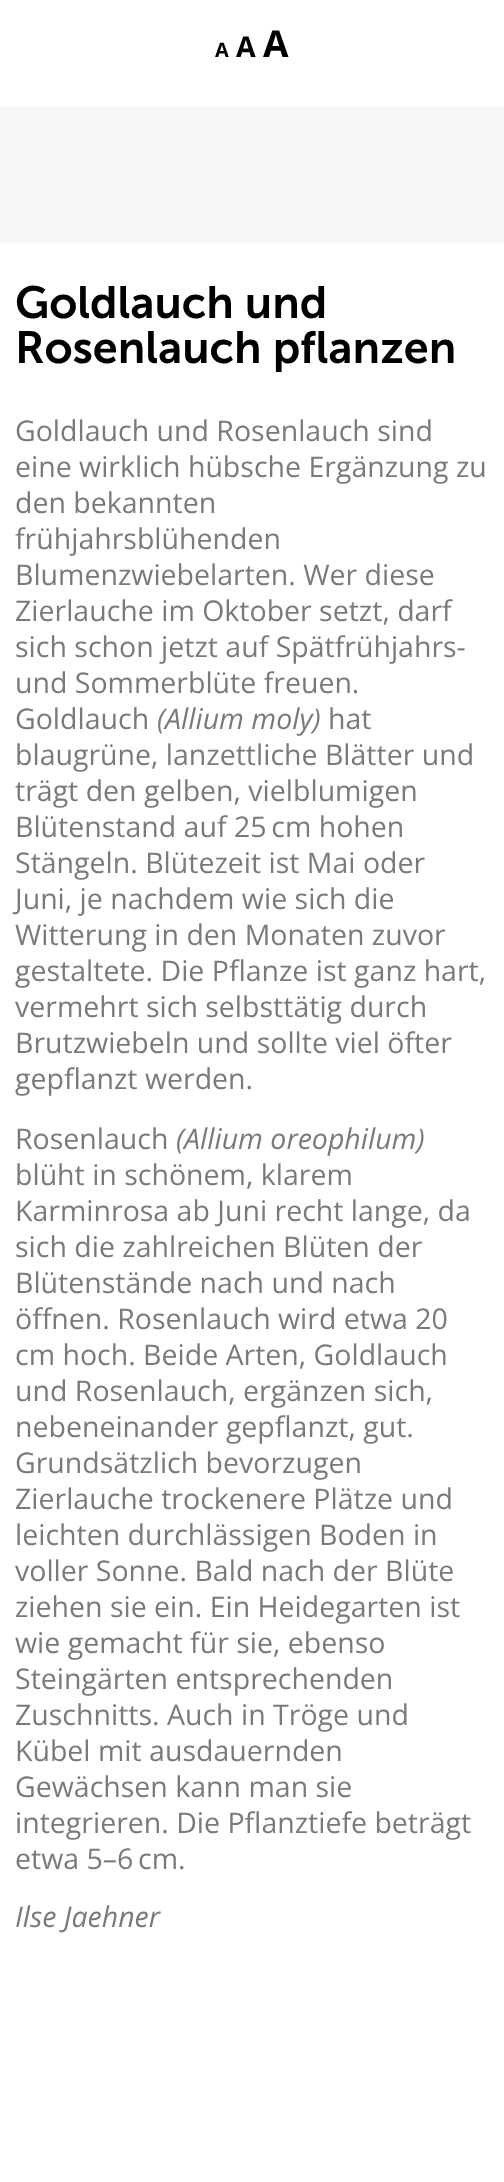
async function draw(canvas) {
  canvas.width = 504;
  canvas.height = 2182;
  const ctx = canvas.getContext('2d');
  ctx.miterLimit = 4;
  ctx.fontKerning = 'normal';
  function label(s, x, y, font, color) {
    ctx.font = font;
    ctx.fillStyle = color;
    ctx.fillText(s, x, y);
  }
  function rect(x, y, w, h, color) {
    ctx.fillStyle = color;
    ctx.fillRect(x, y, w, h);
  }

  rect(0, 0, 504, 2182, '#fff');
  label('A', 215, 57, 'bold 20px Open Sans', '#000');
  label('A', 236, 57, 'bold 28.5px Open Sans', '#000');
  label('A', 263, 57, 'bold 37px Open Sans', '#000');
  rect(0, 107, 504, 136, '#f6f6f6');
  label('Goldlauch und', 15, 318, '600 45px "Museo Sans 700"', '#000');
  label('Rosenlauch pflanzen', 15, 363, '600 45px "Museo Sans 700"', '#000');
  label('Goldlauch und Rosenlauch sind', 15, 441, '28.5px Open Sans', '#7a7a7a');
  label('eine wirklich hübsche Ergänzung zu', 15, 477, '28.5px Open Sans', '#7a7a7a');
  label('den bekannten', 15, 513, '28.5px Open Sans', '#7a7a7a');
  label('frühjahrsblühenden', 15, 549, '28.5px Open Sans', '#7a7a7a');
  label('Blumenzwiebelarten. Wer diese', 15, 585, '28.5px Open Sans', '#7a7a7a');
  label('Zierlauche im Oktober setzt, darf', 15, 621, '28.5px Open Sans', '#7a7a7a');
  label('sich schon jetzt auf Spätfrühjahrs-', 15, 657, '28.5px Open Sans', '#7a7a7a');
  label('und Sommerblüte freuen.', 15, 693, '28.5px Open Sans', '#7a7a7a');
  label('Goldlauch', 15, 729, '28.5px Open Sans', '#7a7a7a');
  label('(Allium moly)', 157, 729, 'italic 28.5px Open Sans', '#7a7a7a');
  label('hat', 328, 729, '28.5px Open Sans', '#7a7a7a');
  label('blaugrüne, lanzettliche Blätter und', 15, 765, '28.5px Open Sans', '#7a7a7a');
  label('trägt den gelben, vielblumigen', 15, 801, '28.5px Open Sans', '#7a7a7a');
  label('Blütenstand auf 25 cm hohen', 15, 837, '28.5px Open Sans', '#7a7a7a');
  label('Stängeln. Blütezeit ist Mai oder', 15, 873, '28.5px Open Sans', '#7a7a7a');
  label('Juni, je nachdem wie sich die', 15, 909, '28.5px Open Sans', '#7a7a7a');
  label('Witterung in den Monaten zuvor', 15, 945, '28.5px Open Sans', '#7a7a7a');
  label('gestaltete. Die Pflanze ist ganz hart,', 15, 981, '28.5px Open Sans', '#7a7a7a');
  label('vermehrt sich selbsttätig durch', 15, 1017, '28.5px Open Sans', '#7a7a7a');
  label('Brutzwiebeln und sollte viel öfter', 15, 1053, '28.5px Open Sans', '#7a7a7a');
  label('gepflanzt werden.', 15, 1089, '28.5px Open Sans', '#7a7a7a');
  label('Rosenlauch', 15, 1149, '28.5px Open Sans', '#7a7a7a');
  label('(Allium oreophilum)', 176, 1149, 'italic 28.5px Open Sans', '#7a7a7a');
  label('blüht in schönem, klarem', 15, 1185, '28.5px Open Sans', '#7a7a7a');
  label('Karminrosa ab Juni recht lange, da', 15, 1221, '28.5px Open Sans', '#7a7a7a');
  label('sich die zahlreichen Blüten der', 15, 1257, '28.5px Open Sans', '#7a7a7a');
  label('Blütenstände nach und nach', 15, 1293, '28.5px Open Sans', '#7a7a7a');
  label('öffnen. Rosenlauch wird etwa 20', 15, 1329, '28.5px Open Sans', '#7a7a7a');
  label('cm hoch. Beide Arten, Goldlauch', 15, 1365, '28.5px Open Sans', '#7a7a7a');
  label('und Rosenlauch, ergänzen sich,', 15, 1401, '28.5px Open Sans', '#7a7a7a');
  label('nebeneinander gepflanzt, gut.', 15, 1437, '28.5px Open Sans', '#7a7a7a');
  label('Grundsätzlich bevorzugen', 15, 1473, '28.5px Open Sans', '#7a7a7a');
  label('Zierlauche trockenere Plätze und', 15, 1509, '28.5px Open Sans', '#7a7a7a');
  label('leichten durchlässigen Boden in', 15, 1545, '28.5px Open Sans', '#7a7a7a');
  label('voller Sonne. Bald nach der Blüte', 15, 1581, '28.5px Open Sans', '#7a7a7a');
  label('ziehen sie ein. Ein Heidegarten ist', 15, 1617, '28.5px Open Sans', '#7a7a7a');
  label('wie gemacht für sie, ebenso', 15, 1653, '28.5px Open Sans', '#7a7a7a');
  label('Steingärten entsprechenden', 15, 1689, '28.5px Open Sans', '#7a7a7a');
  label('Zuschnitts. Auch in Tröge und', 15, 1725, '28.5px Open Sans', '#7a7a7a');
  label('Kübel mit ausdauernden', 15, 1761, '28.5px Open Sans', '#7a7a7a');
  label('Gewächsen kann man sie', 15, 1797, '28.5px Open Sans', '#7a7a7a');
  label('integrieren. Die Pflanztiefe beträgt', 15, 1833, '28.5px Open Sans', '#7a7a7a');
  label('etwa 5–6 cm.', 15, 1869, '28.5px Open Sans', '#7a7a7a');
  label('Ilse Jaehner', 15, 1927, 'italic 28.5px Open Sans', '#7a7a7a');
}

draw(document.querySelector('canvas'));
